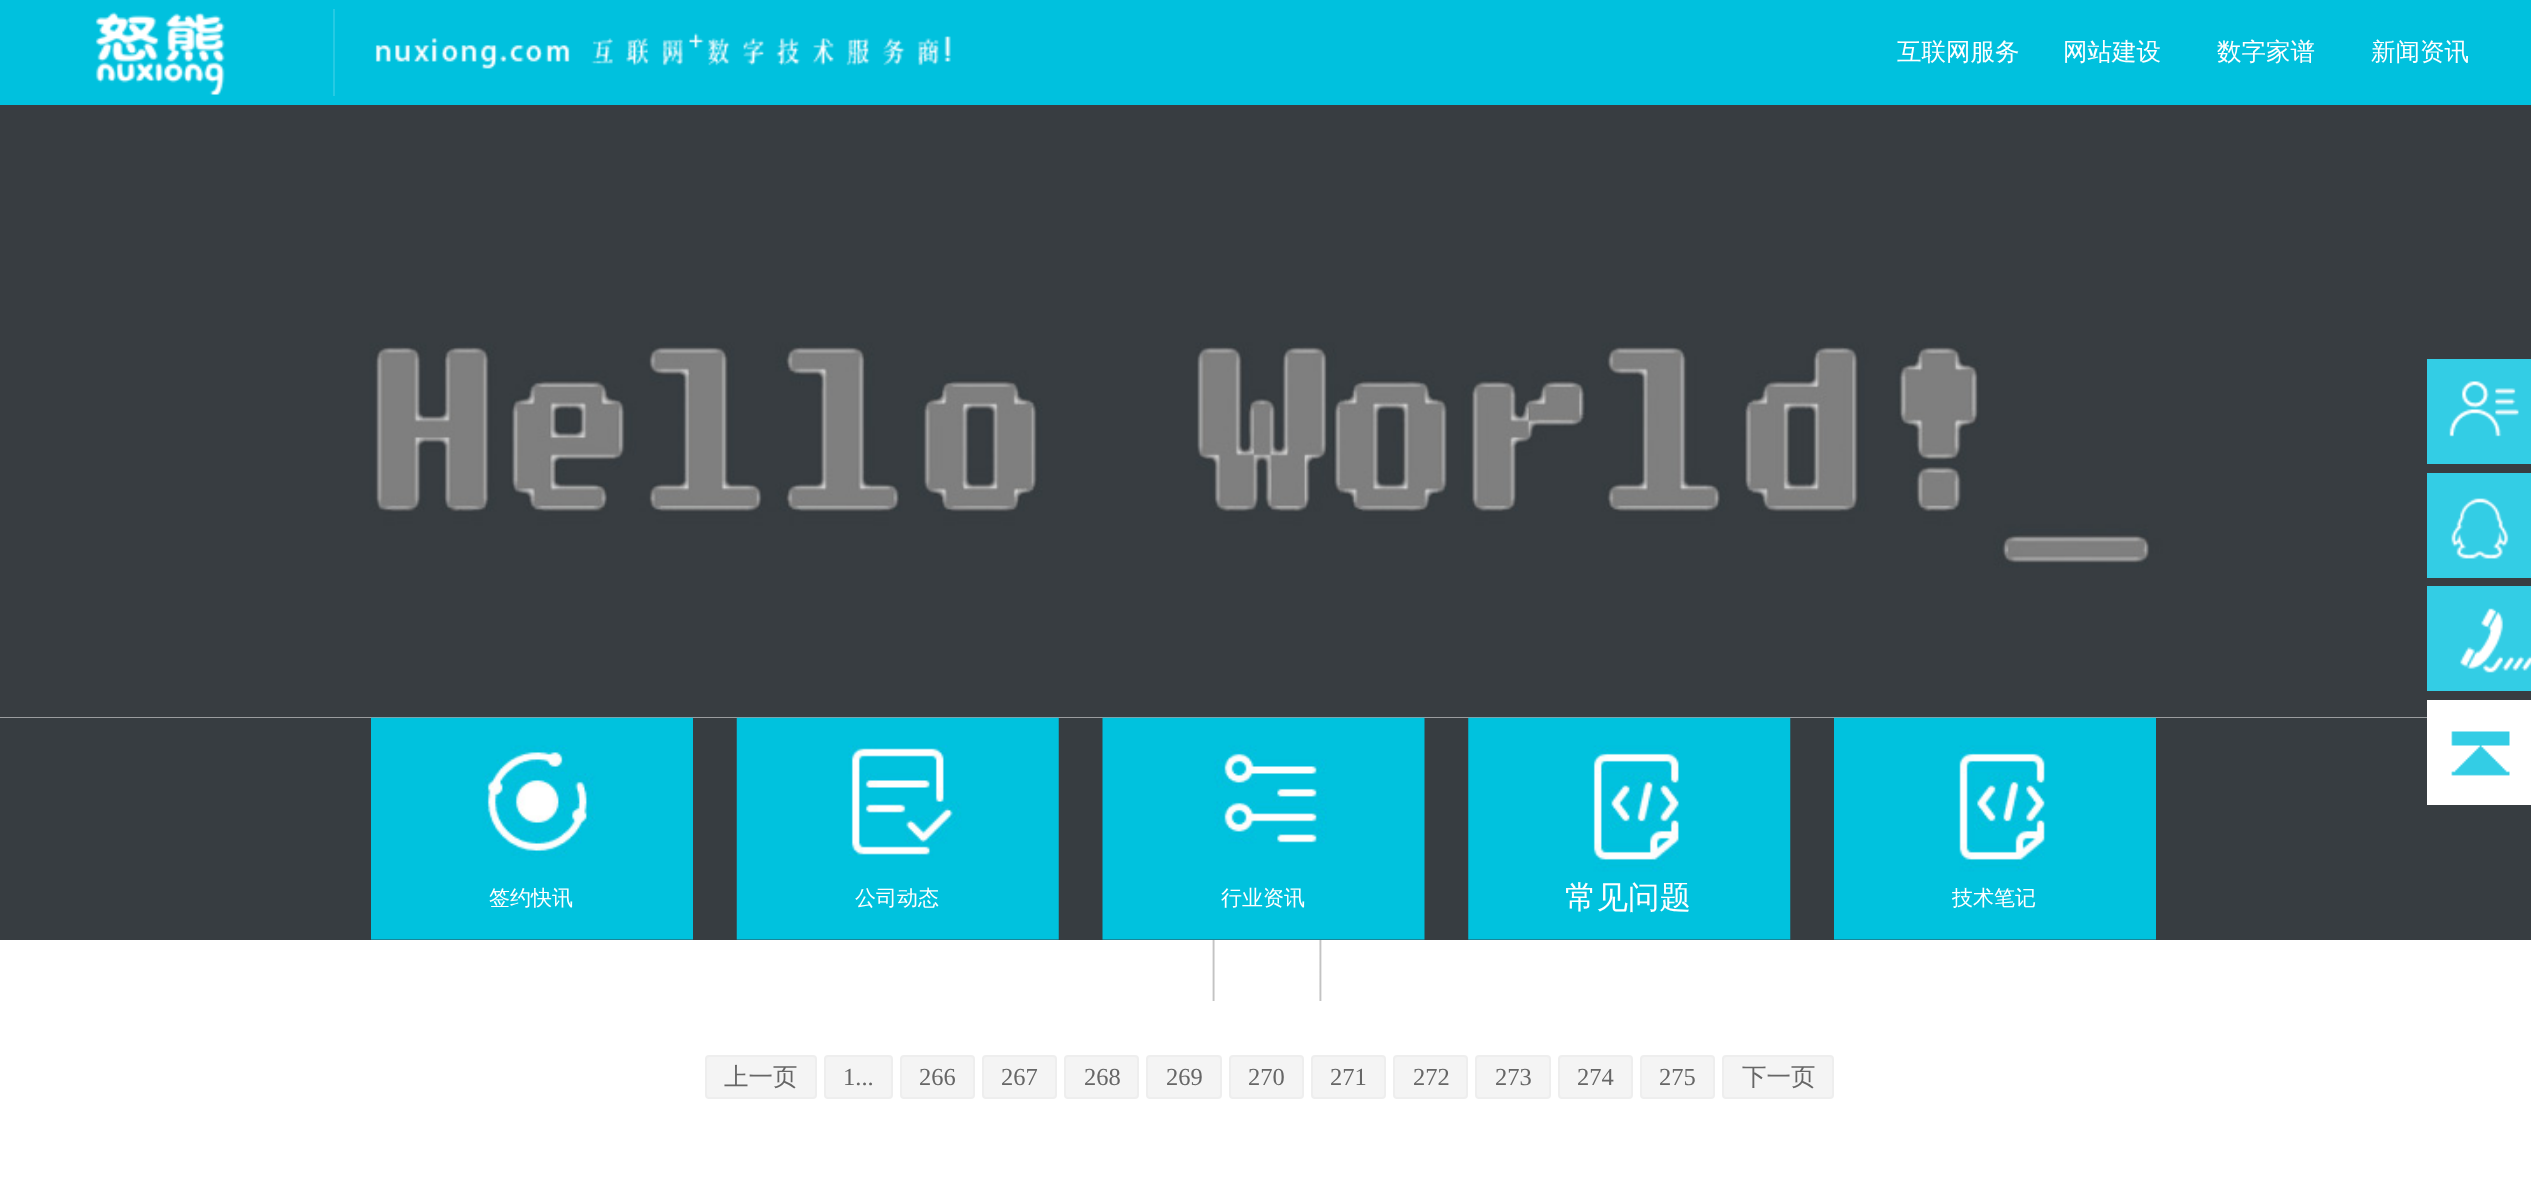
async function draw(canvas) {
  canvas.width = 2531;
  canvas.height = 1184;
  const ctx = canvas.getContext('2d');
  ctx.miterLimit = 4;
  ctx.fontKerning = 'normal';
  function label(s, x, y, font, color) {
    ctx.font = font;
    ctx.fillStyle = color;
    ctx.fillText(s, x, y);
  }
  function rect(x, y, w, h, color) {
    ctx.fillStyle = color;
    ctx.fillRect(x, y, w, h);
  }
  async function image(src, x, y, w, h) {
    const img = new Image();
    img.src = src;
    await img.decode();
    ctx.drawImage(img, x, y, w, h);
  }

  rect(0, 0, 2531, 1184, '#fff');
  rect(0, 0, 2531, 105, '#00c1de');
  rect(333, 9, 2, 87, '#26cae3');
  await image('assets/img1.png', 95, 12, 130, 83);
  await image('assets/img2.png', 375, 33, 576, 36);
  label('互联网服务', 1897, 60, '500 24.5px WenQuanYi Zen Hei', '#fff');
  label('网站建设', 2063, 60, '500 24.5px WenQuanYi Zen Hei', '#fff');
  label('数字家谱', 2217, 60, '500 24.5px WenQuanYi Zen Hei', '#fff');
  label('新闻资讯', 2371, 60, '500 24.5px WenQuanYi Zen Hei', '#fff');
  await image('assets/img3.png', 0, 105, 2531, 613);
  rect(2427, 359, 104, 105, '#33cde5');
  await image('assets/img4.png', 2449, 381, 70, 56);
  rect(2427, 473, 104, 105, '#33cde5');
  await image('assets/img5.png', 2451, 498, 58, 61);
  rect(2427, 586, 104, 105, '#33cde5');
  await image('assets/img6.png', 2460, 608, 71, 65);
  rect(0, 718, 2531, 222, '#373d41');
  rect(2427, 700, 104, 105, '#fff');
  await image('assets/img7.png', 2451, 731, 59, 45);
  await image('assets/img8.png', 371, 717, 322, 223);
  label('签约快讯', 489, 905, '500 21px WenQuanYi Zen Hei', '#fff');
  await image('assets/img9.png', 736, 717, 323, 223);
  label('公司动态', 855, 905, '500 21px WenQuanYi Zen Hei', '#fff');
  await image('assets/img10.png', 1102, 717, 323, 223);
  label('行业资讯', 1221, 905, '500 21px WenQuanYi Zen Hei', '#fff');
  await image('assets/img11.png', 1468, 717, 323, 223);
  label('常见问题', 1565, 908, '500 31.5px WenQuanYi Zen Hei', '#fff');
  await image('assets/img12.png', 1834, 717, 322, 223);
  label('技术笔记', 1952, 905, '500 21px WenQuanYi Zen Hei', '#fff');
  await image('assets/img13.png', 1212, 940, 110, 61);
  ctx.fillStyle = '#f4f4f4';
  ctx.beginPath();
  ctx.roundRect(706, 1056, 110, 42, 3);
  ctx.fill();
  ctx.strokeStyle = '#eee';
  ctx.lineWidth = 2;
  ctx.stroke();
  label('上一页', 724, 1085, '500 24.5px WenQuanYi Zen Hei', '#666');
  ctx.fillStyle = '#f4f4f4';
  ctx.beginPath();
  ctx.roundRect(825, 1056, 67, 42, 3);
  ctx.fill();
  ctx.stroke();
  label('1...', 843, 1085, '24.5px Liberation Serif', '#666');
  ctx.fillStyle = '#f4f4f4';
  ctx.beginPath();
  ctx.roundRect(901, 1056, 73, 42, 3);
  ctx.fill();
  ctx.stroke();
  label('266', 919, 1085, '24.5px Liberation Serif', '#666');
  ctx.fillStyle = '#f4f4f4';
  ctx.beginPath();
  ctx.roundRect(983, 1056, 73, 42, 3);
  ctx.fill();
  ctx.stroke();
  label('267', 1001, 1085, '24.5px Liberation Serif', '#666');
  ctx.fillStyle = '#f4f4f4';
  ctx.beginPath();
  ctx.roundRect(1065, 1056, 73, 42, 3);
  ctx.fill();
  ctx.stroke();
  label('268', 1084, 1085, '24.5px Liberation Serif', '#666');
  ctx.fillStyle = '#f4f4f4';
  ctx.beginPath();
  ctx.roundRect(1147, 1056, 74, 42, 3);
  ctx.fill();
  ctx.stroke();
  label('269', 1166, 1085, '24.5px Liberation Serif', '#666');
  ctx.fillStyle = '#f4f4f4';
  ctx.beginPath();
  ctx.roundRect(1230, 1056, 73, 42, 3);
  ctx.fill();
  ctx.stroke();
  label('270', 1248, 1085, '24.5px Liberation Serif', '#666');
  ctx.fillStyle = '#f4f4f4';
  ctx.beginPath();
  ctx.roundRect(1312, 1056, 73, 42, 3);
  ctx.fill();
  ctx.stroke();
  label('271', 1330, 1085, '24.5px Liberation Serif', '#666');
  ctx.fillStyle = '#f4f4f4';
  ctx.beginPath();
  ctx.roundRect(1394, 1056, 73, 42, 3);
  ctx.fill();
  ctx.stroke();
  label('272', 1413, 1085, '24.5px Liberation Serif', '#666');
  ctx.fillStyle = '#f4f4f4';
  ctx.beginPath();
  ctx.roundRect(1476, 1056, 74, 42, 3);
  ctx.fill();
  ctx.stroke();
  label('273', 1495, 1085, '24.5px Liberation Serif', '#666');
  ctx.fillStyle = '#f4f4f4';
  ctx.beginPath();
  ctx.roundRect(1559, 1056, 73, 42, 3);
  ctx.fill();
  ctx.stroke();
  label('274', 1577, 1085, '24.5px Liberation Serif', '#666');
  ctx.fillStyle = '#f4f4f4';
  ctx.beginPath();
  ctx.roundRect(1641, 1056, 73, 42, 3);
  ctx.fill();
  ctx.stroke();
  label('275', 1659, 1085, '24.5px Liberation Serif', '#666');
  ctx.fillStyle = '#f4f4f4';
  ctx.beginPath();
  ctx.roundRect(1723, 1056, 110, 42, 3);
  ctx.fill();
  ctx.stroke();
  label('下一页', 1742, 1085, '500 24.5px WenQuanYi Zen Hei', '#666');
}

draw(document.querySelector('canvas'));
